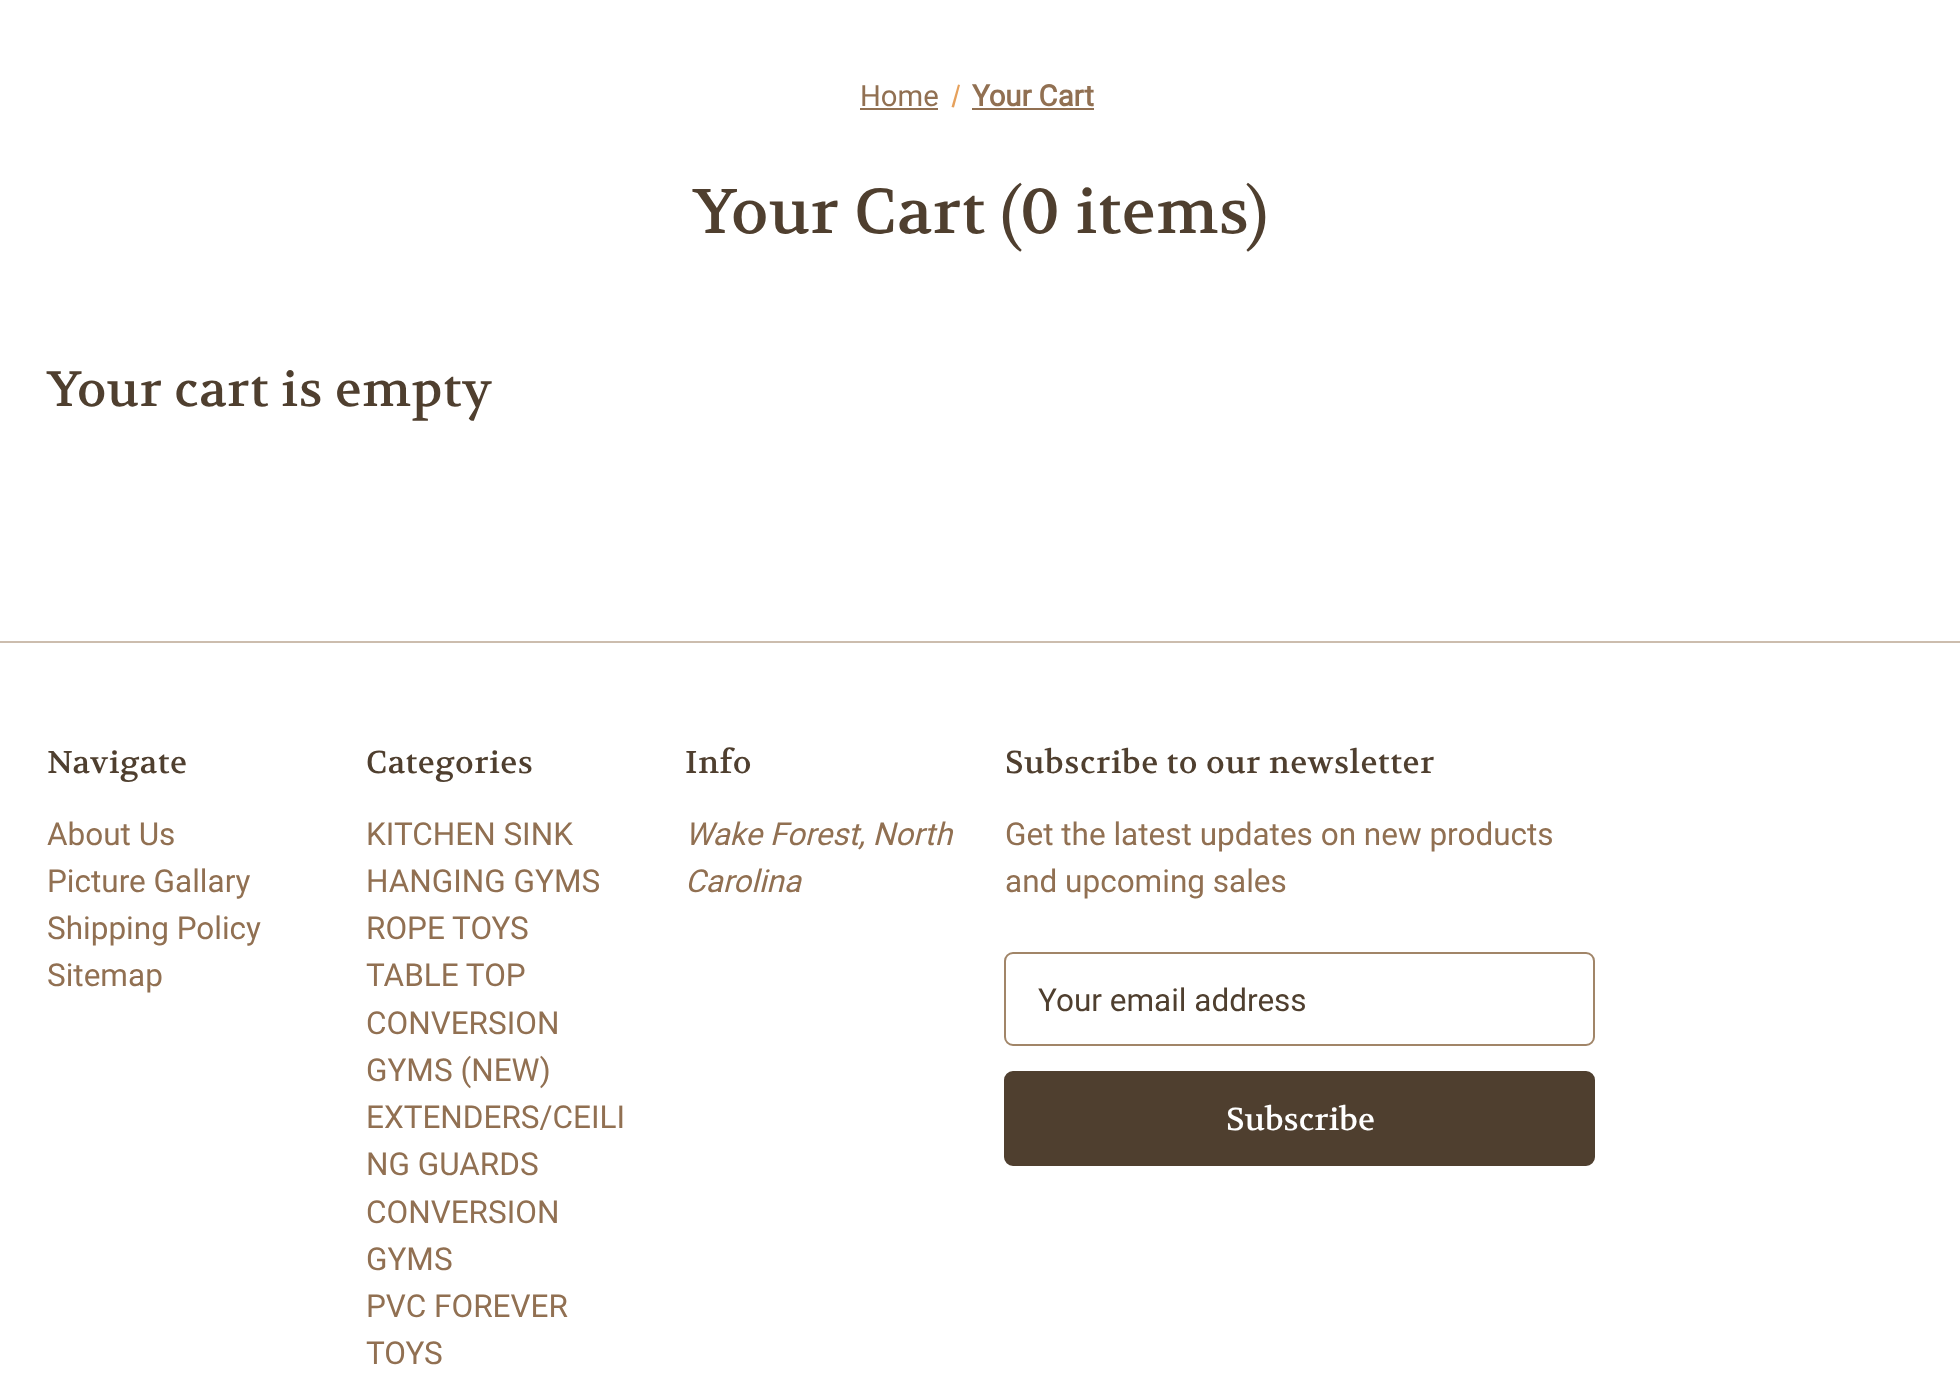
async function draw(canvas) {
  canvas.width = 1960;
  canvas.height = 1373;
  const ctx = canvas.getContext('2d');
  ctx.miterLimit = 4;
  ctx.fontKerning = 'normal';
  function label(s, x, y, font, color) {
    ctx.font = font;
    ctx.fillStyle = color;
    ctx.fillText(s, x, y);
  }
  function rect(x, y, w, h, color) {
    ctx.fillStyle = color;
    ctx.fillRect(x, y, w, h);
  }
  let path;

  rect(0, 0, 1960, 1373, '#fff');
  label('Home', 860, 106, '29.25px Roboto', '#917052');
  rect(860, 108, 78, 2, '#917052');
  ctx.fillStyle = '#e6a15c';
  path = new Path2D('M958 84.5L960 85L954 107.5L951.5 107Z');
  ctx.fill(path);
  label('Your Cart', 972, 106, 'bold 29.25px Roboto', '#917052');
  rect(972, 108, 122, 2, '#917052');
  ctx.letterSpacing = '0.55px';
  label('Your Cart (0 items)', 693, 233, '63px Volkhov', '#4f3f2f');
  label('Your cart is empty', 47, 406, '49.5px Volkhov', '#4f3f2f');
  rect(0, 641, 1960, 2, '#ccbdae');
  label('Navigate', 47, 773, '31.5px Volkhov', '#4f3f2f');
  ctx.letterSpacing = '0px';
  label('About Us', 47, 845, '31.5px Roboto', '#917052');
  label('Picture Gallary', 47, 892, '31.5px Roboto', '#917052');
  label('Shipping Policy', 47, 939, '31.5px Roboto', '#917052');
  label('Sitemap', 47, 986, '31.5px Roboto', '#917052');
  ctx.letterSpacing = '0.55px';
  label('Categories', 366, 773, '31.5px Volkhov', '#4f3f2f');
  ctx.letterSpacing = '0px';
  label('KITCHEN SINK', 366, 845, '31.5px Roboto', '#917052');
  label('HANGING GYMS', 366, 892, '31.5px Roboto', '#917052');
  label('ROPE TOYS', 366, 939, '31.5px Roboto', '#917052');
  label('TABLE TOP', 366, 986, '31.5px Roboto', '#917052');
  label('CONVERSION', 366, 1034, '31.5px Roboto', '#917052');
  label('GYMS (NEW)', 366, 1081, '31.5px Roboto', '#917052');
  label('EXTENDERS/CEILI', 366, 1128, '31.5px Roboto', '#917052');
  label('NG GUARDS', 366, 1175, '31.5px Roboto', '#917052');
  label('CONVERSION', 366, 1223, '31.5px Roboto', '#917052');
  label('GYMS', 366, 1270, '31.5px Roboto', '#917052');
  label('PVC FOREVER', 366, 1317, '31.5px Roboto', '#917052');
  label('TOYS', 366, 1364, '31.5px Roboto', '#917052');
  ctx.letterSpacing = '0.55px';
  label('Info', 685, 773, '31.5px Volkhov', '#4f3f2f');
  ctx.letterSpacing = '0px';
  label('Wake Forest, North', 685, 845, 'italic 31.5px Roboto', '#917052');
  label('Carolina', 685, 892, 'italic 31.5px Roboto', '#917052');
  ctx.letterSpacing = '0.55px';
  label('Subscribe to our newsletter', 1005, 773, '31.5px Volkhov', '#4f3f2f');
  ctx.letterSpacing = '0px';
  label('Get the latest updates on new products', 1005, 845, '31.5px Roboto', '#917052');
  label('and upcoming sales', 1005, 892, '31.5px Roboto', '#917052');
  ctx.beginPath();
  ctx.roundRect(1005, 953, 589, 92, 8);
  ctx.strokeStyle = '#a18568';
  ctx.lineWidth = 2;
  ctx.stroke();
  label('Your email address', 1038, 1011, '31.5px Roboto', '#4f3f2f');
  ctx.beginPath();
  ctx.roundRect(1005, 1072, 589, 93, 8);
  ctx.fill();
  ctx.strokeStyle = '#4f3f2f';
  ctx.stroke();
  label('Subscribe', 1226, 1130, '31.5px Volkhov', '#fff');
}

draw(document.querySelector('canvas'));
